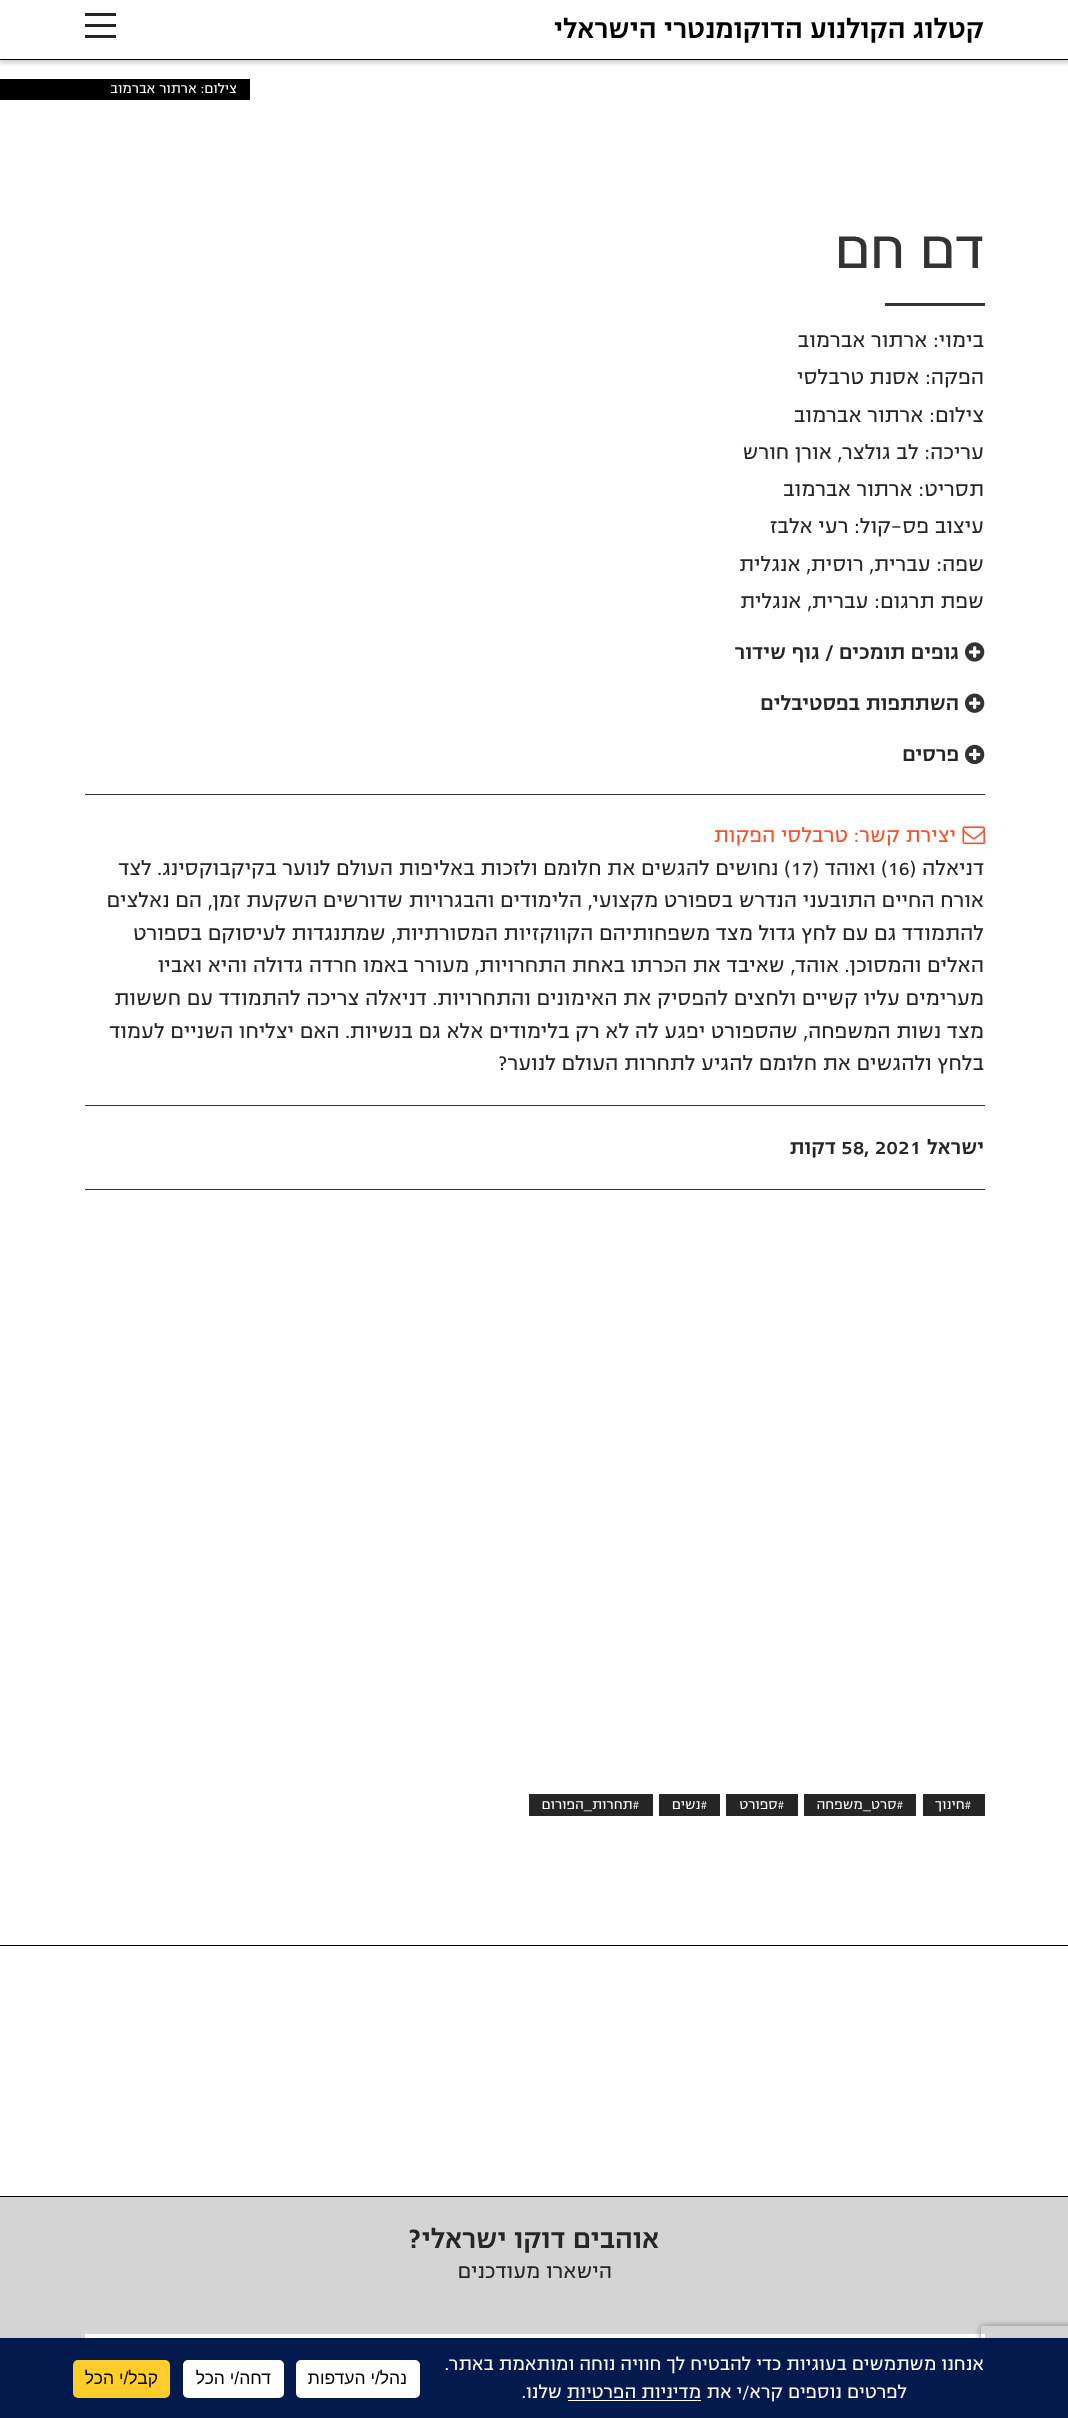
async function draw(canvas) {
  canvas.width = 1068;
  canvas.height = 2418;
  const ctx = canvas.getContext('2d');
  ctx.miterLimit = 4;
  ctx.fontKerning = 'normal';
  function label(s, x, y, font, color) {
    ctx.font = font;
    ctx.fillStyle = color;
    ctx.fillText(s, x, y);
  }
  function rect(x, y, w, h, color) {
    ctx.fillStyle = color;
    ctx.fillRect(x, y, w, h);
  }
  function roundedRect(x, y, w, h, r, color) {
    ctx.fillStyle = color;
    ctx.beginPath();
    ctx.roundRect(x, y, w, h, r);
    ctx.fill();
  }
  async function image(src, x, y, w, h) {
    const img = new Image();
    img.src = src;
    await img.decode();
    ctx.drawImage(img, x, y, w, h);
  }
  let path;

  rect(0, 0, 1068, 2418, '#fff');
  ctx.save();
  ctx.beginPath();
  ctx.rect(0, 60, 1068, 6);
  ctx.clip();
  ctx.fillStyle = '#00000033';
  ctx.filter = 'blur(2.5px)';
  ctx.beginPath();
  ctx.rect(-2, -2, 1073, 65);
  ctx.fill();
  ctx.filter = 'none';
  ctx.restore();
  rect(0, 59, 1068, 1, '#000');
  ctx.direction = 'rtl';
  label('קטלוג הקולנוע הדוקומנטרי הישראלי', 984, 38, '500 30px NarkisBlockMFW', '#000');
  rect(85, 13, 31, 3, '#262626');
  rect(85, 24, 31, 3, '#262626');
  rect(85, 35, 31, 3, '#262626');
  rect(0, 79, 250, 21, '#000');
  label('צילום: ארתור אברמוב', 237, 93, '15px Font', '#fff');
  rect(0, 1945, 1068, 1, '#000');
  ctx.letterSpacing = '-0.5px';
  label('דם חם', 984, 268, '60px Font', '#333');
  rect(885, 303, 100, 3, '#333');
  ctx.letterSpacing = '0px';
  label('בימוי: ארתור אברמוב', 984, 347, '22.5px Font', '#262626');
  label('הפקה: אסנת טרבלסי', 984, 384, '22.5px Font', '#262626');
  label('צילום: ארתור אברמוב', 984, 422, '22.5px Font', '#262626');
  label('עריכה: לב גולצר, אורן חורש', 984, 459, '22.5px Font', '#262626');
  label('תסריט: ארתור אברמוב', 984, 496, '22.5px Font', '#262626');
  label('עיצוב פס-קול: רעי אלבז', 984, 533, '22.5px Font', '#262626');
  label('שפה: עברית, רוסית, אנגלית', 984, 571, '22.5px Font', '#262626');
  label('שפת תרגום: עברית, אנגלית', 984, 608, '22.5px Font', '#262626');
  await image('assets/img1.png', 965, 642, 20, 20);
  label('גופים תומכים / גוף שידור', 959, 659, '500 22.5px NarkisBlockMFW', '#262626');
  await image('assets/img2.png', 965, 693, 20, 20);
  label('השתתפות בפסטיבלים', 959, 710, '500 22.5px NarkisBlockMFW', '#262626');
  await image('assets/img3.png', 965, 744, 20, 21);
  label('פרסים', 959, 761, '500 22.5px NarkisBlockMFW', '#262626');
  rect(85, 794, 900, 1, '#333');
  await image('assets/img4.png', 962, 826, 23, 19);
  label('יצירת קשר: טרבלסי הפקות', 956, 842, '22.5px Font', '#fa5028');
  label('דניאלה (', 984, 875, '22.5px Font', '#262626');
  ctx.direction = 'ltr';
  label('16', 888, 875, '22.5px Font', '#262626');
  ctx.direction = 'rtl';
  label(') ואוהד (', 888, 875, '22.5px Font', '#262626');
  ctx.direction = 'ltr';
  label('17', 791, 875, '22.5px Font', '#262626');
  ctx.direction = 'rtl';
  label(') נחושים להגשים את חלומם ולזכות באליפות העולם לנוער בקיקבוקסינג. לצד', 791, 875, '22.5px Font', '#262626');
  label('אורח החיים התובעני הנדרש בספורט מקצועי, הלימודים והבגרויות שדורשים השקעת זמן, הם נאלצים', 984, 907, '22.5px Font', '#262626');
  label('להתמודד גם עם לחץ גדול מצד משפחותיהם הקווקזיות המסורתיות, שמתנגדות לעיסוקם בספורט', 984, 940, '22.5px Font', '#262626');
  label('האלים והמסוכן. אוהד, שאיבד את הכרתו באחת התחרויות, מעורר באמו חרדה גדולה והיא ואביו', 984, 972, '22.5px Font', '#262626');
  label('מערימים עליו קשיים ולחצים להפסיק את האימונים והתחרויות. דניאלה צריכה להתמודד עם חששות', 984, 1005, '22.5px Font', '#262626');
  label('מצד נשות המשפחה, שהספורט יפגע לה לא רק בלימודים אלא גם בנשיות. האם יצליחו השניים לעמוד', 984, 1038, '22.5px Font', '#262626');
  label('בלחץ ולהגשים את חלומם להגיע לתחרות העולם לנוער?', 984, 1070, '22.5px Font', '#262626');
  rect(85, 1105, 900, 1, '#333');
  label('ישראל', 984, 1154, '500 22.5px NarkisBlockMFW', '#262626');
  ctx.direction = 'ltr';
  label('58, 2021', 841, 1154, '500 22.5px NarkisBlockMFW', '#262626');
  ctx.direction = 'rtl';
  label('דקות', 836, 1154, '500 22.5px NarkisBlockMFW', '#262626');
  rect(85, 1189, 900, 1, '#333');
  rect(923, 1794, 62, 22, '#262626');
  label('#חינוך', 972, 1809, '15px Font', '#fff');
  rect(804, 1794, 112, 22, '#262626');
  label('#סרט_משפחה', 904, 1809, '15px Font', '#fff');
  rect(726, 1794, 72, 22, '#262626');
  label('#ספורט', 785, 1809, '15px Font', '#fff');
  rect(659, 1794, 61, 22, '#262626');
  label('#נשים', 708, 1809, '15px Font', '#fff');
  rect(529, 1794, 124, 22, '#262626');
  label('#תחרות_הפורום', 640, 1809, '15px Font', '#fff');
  rect(0, 2197, 1068, 141, '#d4d4d4');
  rect(0, 2196, 1068, 1, '#000');
  label('אוהבים דוקו ישראלי?', 659, 2248, '500 30px NarkisBlockMFW', '#262626');
  label('הישארו מעודכנים', 612, 2278, '22.5px Font', '#262626');
  rect(85, 2334, 900, 4, '#fff');
  ctx.save();
  path = new Path2D('M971 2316H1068V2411H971ZM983.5 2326H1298.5C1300 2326 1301 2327 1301 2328.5V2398.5C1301 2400 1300 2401 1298.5 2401H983.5C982 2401 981 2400 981 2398.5V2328.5C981 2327 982 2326 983.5 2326Z');
  ctx.clip(path, 'evenodd');
  ctx.fillStyle = '#808080';
  ctx.filter = 'blur(3px)';
  ctx.beginPath();
  ctx.roundRect(981, 2326, 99, 75, 2.5);
  ctx.fill();
  ctx.filter = 'none';
  ctx.restore();
  rect(0, 2338, 1068, 80, '#04194e');
  label('אנחנו משתמשים בעוגיות כדי להבטיח לך חוויה נוחה ומותאמת באתר.', 984, 2370, '20px Font', '#fff');
  label('לפרטים נוספים קרא/י את', 907, 2398, '20px Font', '#fff');
  label('מדיניות הפרטיות', 701, 2398, '20px Font', '#fff');
  rect(568, 2400, 133, 1, '#fff');
  label('שלנו.', 562, 2398, '20px Font', '#fff');
  roundedRect(296, 2360, 124, 38, 5, '#fff');
  label('נהל/י העדפות', 407, 2384, '17.5px Liberation Sans', '#000');
  roundedRect(183, 2360, 101, 38, 5, '#fff');
  label('דחה/י הכל', 271, 2384, '17.5px Liberation Sans', '#000');
  roundedRect(73, 2360, 97, 38, 5, '#ffcd2a');
  label('קבל/י הכל', 158, 2384, '17.5px Liberation Sans', '#000');
}

draw(document.querySelector('canvas'));
